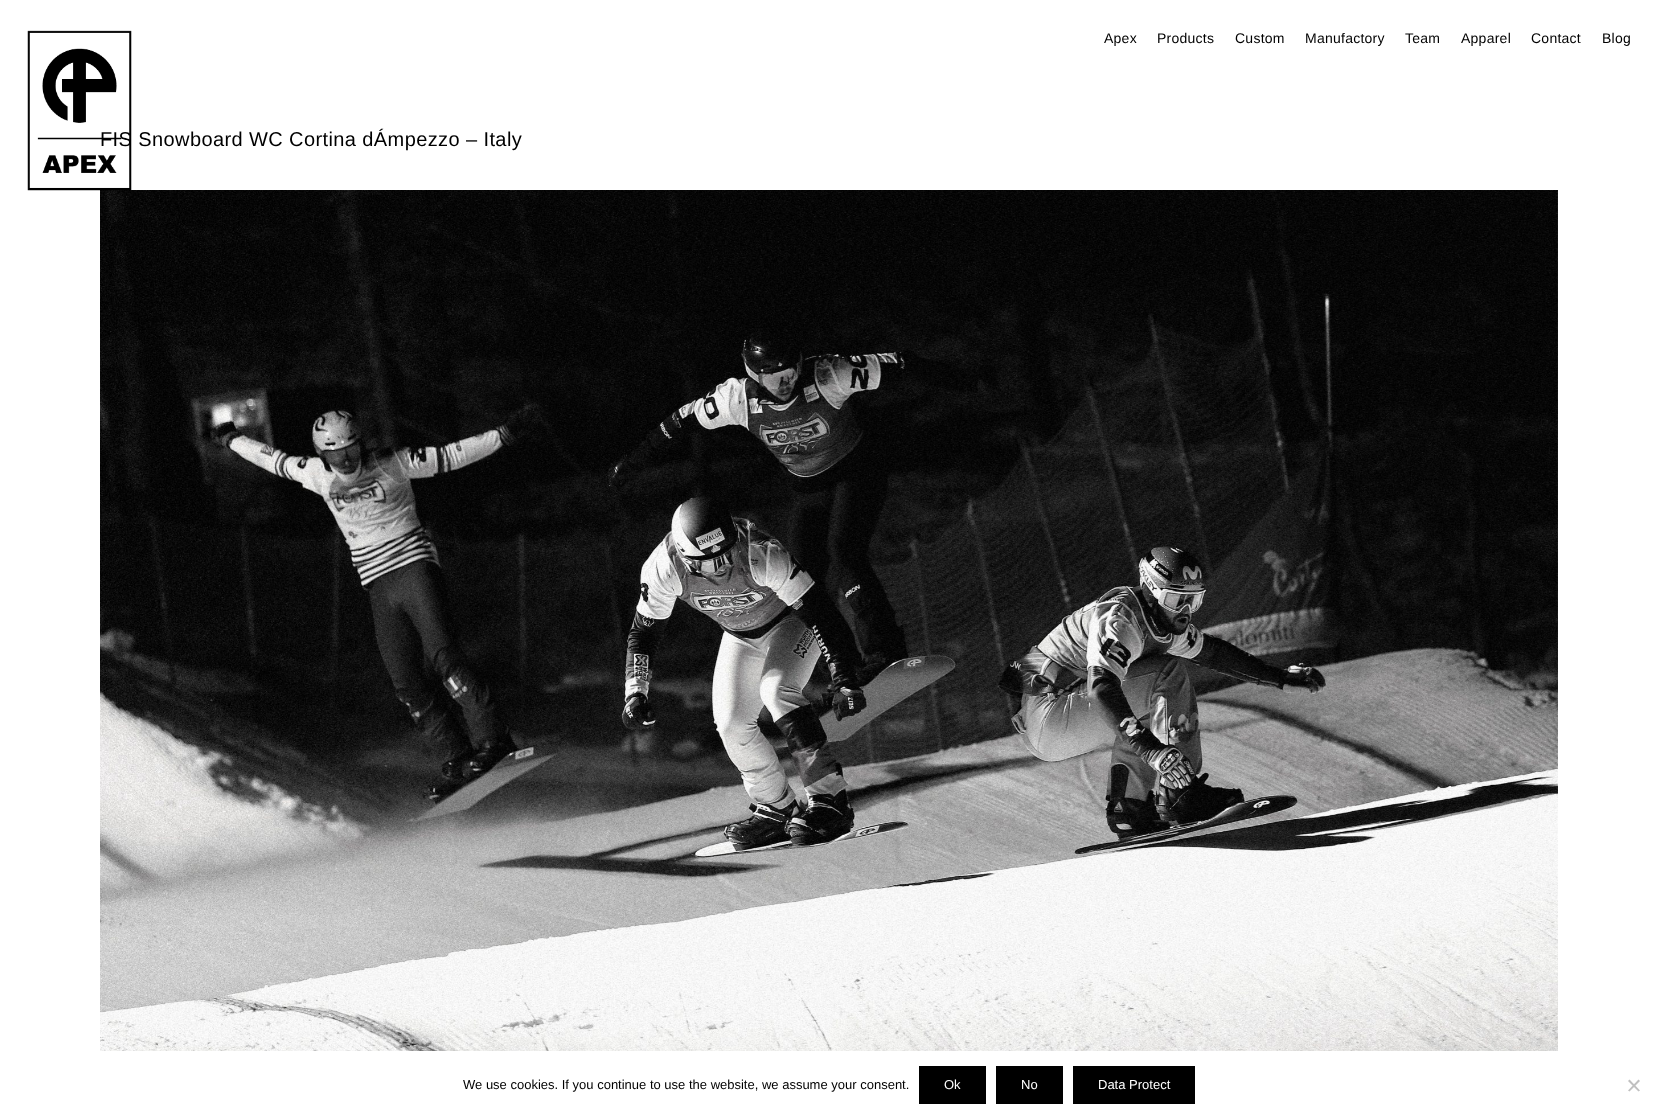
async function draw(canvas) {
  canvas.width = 1658;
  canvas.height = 1119;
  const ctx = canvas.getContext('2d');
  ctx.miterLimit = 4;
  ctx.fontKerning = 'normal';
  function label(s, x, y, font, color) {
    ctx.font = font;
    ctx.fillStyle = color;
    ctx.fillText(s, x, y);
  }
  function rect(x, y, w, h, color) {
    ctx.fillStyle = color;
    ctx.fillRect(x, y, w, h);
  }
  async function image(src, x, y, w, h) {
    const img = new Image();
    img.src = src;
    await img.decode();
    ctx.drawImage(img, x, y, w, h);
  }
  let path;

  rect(0, 0, 1658, 1119, '#fff');
  ctx.letterSpacing = '0.4px';
  label('FIS Snowboard WC Cortina dÁmpezzo – Italy', 100, 146, '20px Liberation Sans', '#000');
  await image('assets/img2.png', 100, 190, 1458, 861);
  await image('assets/img1.png', 27, 30, 105, 161);
  ctx.letterSpacing = '0.25px';
  label('Apex', 1104, 43, '14px Liberation Sans', '#000');
  label('Products', 1157, 43, '14px Liberation Sans', '#000');
  label('Custom', 1235, 43, '14px Liberation Sans', '#000');
  label('Manufactory', 1305, 43, '14px Liberation Sans', '#000');
  label('Team', 1405, 43, '14px Liberation Sans', '#000');
  label('Apparel', 1461, 43, '14px Liberation Sans', '#000');
  label('Contact', 1531, 43, '14px Liberation Sans', '#000');
  label('Blog', 1602, 43, '14px Liberation Sans', '#000');
  ctx.letterSpacing = '0px';
  label('We use cookies. If you continue to use the website, we assume your consent.', 463, 1089, '13px Liberation Sans', '#000');
  rect(919, 1066, 67, 38, '#000');
  label('Ok', 944, 1089, '13px Liberation Sans', '#fff');
  rect(996, 1066, 67, 38, '#000');
  label('No', 1021, 1089, '13px Liberation Sans', '#fff');
  rect(1073, 1066, 122, 38, '#000');
  label('Data Protect', 1098, 1089, '13px Liberation Sans', '#fff');
  ctx.fillStyle = '#c0c0c0';
  path = new Path2D('M1638.5 1079.5L1640 1081L1629.5 1091.5L1628 1090.5Z');
  ctx.fill(path);
  path = new Path2D('M1628 1081L1629.5 1079.5L1640 1090.5L1638.5 1091.5Z');
  ctx.fill(path);
}

draw(document.querySelector('canvas'));
